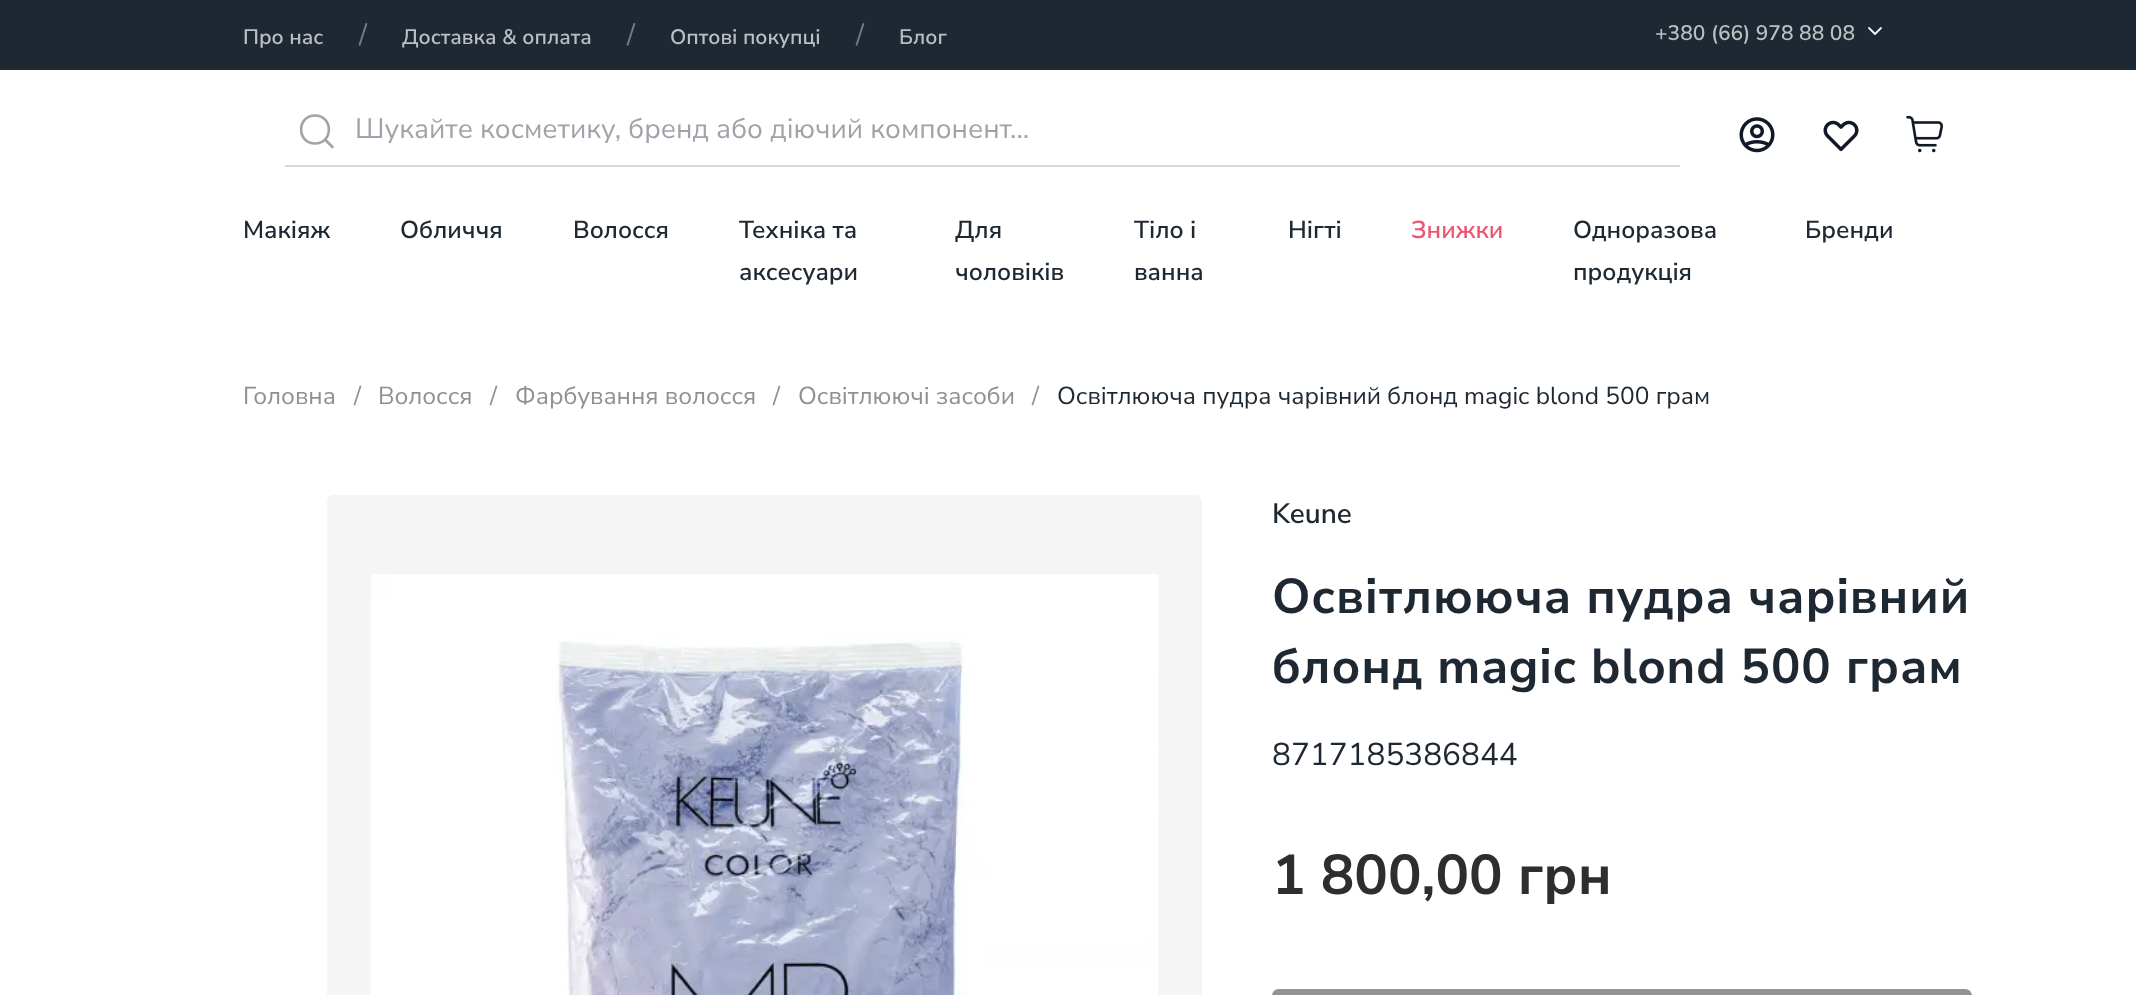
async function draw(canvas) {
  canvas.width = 2136;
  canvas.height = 995;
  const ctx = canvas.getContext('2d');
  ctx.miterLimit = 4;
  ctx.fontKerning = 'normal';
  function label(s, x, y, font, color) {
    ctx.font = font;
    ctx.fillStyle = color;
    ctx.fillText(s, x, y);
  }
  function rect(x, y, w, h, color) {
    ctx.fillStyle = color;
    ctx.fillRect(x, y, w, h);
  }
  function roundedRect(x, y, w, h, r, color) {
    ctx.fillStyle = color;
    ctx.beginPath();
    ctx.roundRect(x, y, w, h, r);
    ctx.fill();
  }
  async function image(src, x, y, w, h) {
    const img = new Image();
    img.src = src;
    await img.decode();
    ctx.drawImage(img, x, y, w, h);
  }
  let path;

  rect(0, 0, 2136, 995, '#fff');
  rect(0, 0, 2136, 70, '#1e2832');
  label('Про нас', 243, 44, '600 21px Nunito Sans', '#bcbfc2');
  label('/', 359, 44, '28px Nunito Sans', '#767c82');
  label('Доставка & оплата', 402, 44, '600 21px Nunito Sans', '#bcbfc2');
  label('/', 627, 44, '28px Nunito Sans', '#767c82');
  label('Оптові покупці', 670, 44, '600 21px Nunito Sans', '#bcbfc2');
  label('/', 856, 44, '28px Nunito Sans', '#767c82');
  label('Блог', 899, 44, '600 21px Nunito Sans', '#bcbfc2');
  label('+380 (66) 978 88 08', 1655, 40, '600 21px Nunito Sans', '#bcbfc2');
  path = new Path2D('M1881 28L1875 34L1869 28');
  ctx.strokeStyle = '#fafafa';
  ctx.lineWidth = 1.8;
  ctx.lineCap = 'round';
  ctx.lineJoin = 'round';
  ctx.stroke(path);
  path = new Path2D('M315 143.5C333.5 143.5 333.5 115.5 315 115.5C296.5 115.5 296.5 143.5 315 143.5ZM332.5 147L325.5 140');
  ctx.strokeStyle = '#a0a3a9';
  ctx.lineWidth = 2.6;
  ctx.stroke(path);
  rect(285, 165, 1395, 2, '#d3dae1');
  label('Шукайте косметику, бренд або діючий компонент...', 355, 138, '28px Nunito Sans', '#a0a3a9');
  await image('assets/img1.png', 1739, 117, 36, 36);
  await image('assets/img2.png', 1823, 120, 36, 32);
  await image('assets/img3.png', 1906, 115, 37, 38);
  label('Макіяж', 243, 238, '600 24.5px Nunito Sans', '#1e2832');
  label('Обличчя', 400, 238, '600 24.5px Nunito Sans', '#1e2832');
  label('Волосся', 573, 238, '600 24.5px Nunito Sans', '#1e2832');
  label('Техніка та', 739, 238, '600 24.5px Nunito Sans', '#1e2832');
  label('аксесуари', 739, 280, '600 24.5px Nunito Sans', '#1e2832');
  label('Для', 955, 238, '600 24.5px Nunito Sans', '#1e2832');
  label('чоловіків', 955, 280, '600 24.5px Nunito Sans', '#1e2832');
  label('Тіло і', 1134, 238, '600 24.5px Nunito Sans', '#1e2832');
  label('ванна', 1134, 280, '600 24.5px Nunito Sans', '#1e2832');
  label('Нігті', 1288, 238, '600 24.5px Nunito Sans', '#1e2832');
  label('Знижки', 1411, 238, '600 24.5px Nunito Sans', '#eb5673');
  label('Одноразова', 1573, 238, '600 24.5px Nunito Sans', '#1e2832');
  label('продукція', 1573, 280, '600 24.5px Nunito Sans', '#1e2832');
  label('Бренди', 1805, 238, '600 24.5px Nunito Sans', '#1e2832');
  label('Головна', 243, 404, '24.5px Nunito Sans', '#8c9196');
  label('/', 354, 404, '24.5px Nunito Sans', '#8c9196');
  label('Волосся', 378, 404, '24.5px Nunito Sans', '#8c9196');
  label('/', 490, 404, '24.5px Nunito Sans', '#8c9196');
  label('Фарбування волосся', 515, 404, '24.5px Nunito Sans', '#8c9196');
  label('/', 773, 404, '24.5px Nunito Sans', '#8c9196');
  label('Освітлюючі засоби', 798, 404, '24.5px Nunito Sans', '#8c9196');
  label('/', 1032, 404, '24.5px Nunito Sans', '#8c9196');
  label('Освітлююча пудра чарiвний блонд magic blond 500 грам', 1057, 404, '24.5px Nunito Sans', '#1e2832');
  roundedRect(327, 495, 875, 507, 7, '#f5f5f5');
  await image('assets/img4.png', 371, 574, 788, 421);
  label('Keune', 1272, 523, '600 28px Nunito Sans', '#1e2832');
  ctx.letterSpacing = '0.9px';
  label('Освітлююча пудра чарiвний', 1272, 613, 'bold 49px Nunito Sans', '#1e2832');
  label('блонд magic blond 500 грам', 1272, 683, 'bold 49px Nunito Sans', '#1e2832');
  ctx.letterSpacing = '0px';
  label('8717185386844', 1272, 765, '31.5px Nunito Sans', '#1e2832');
  label('1 800,00 грн', 1272, 894, 'bold 56px Nunito Sans', '#2e2e2e');
  roundedRect(1272, 989, 700, 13, 7, '#8f9499');
}

draw(document.querySelector('canvas'));
